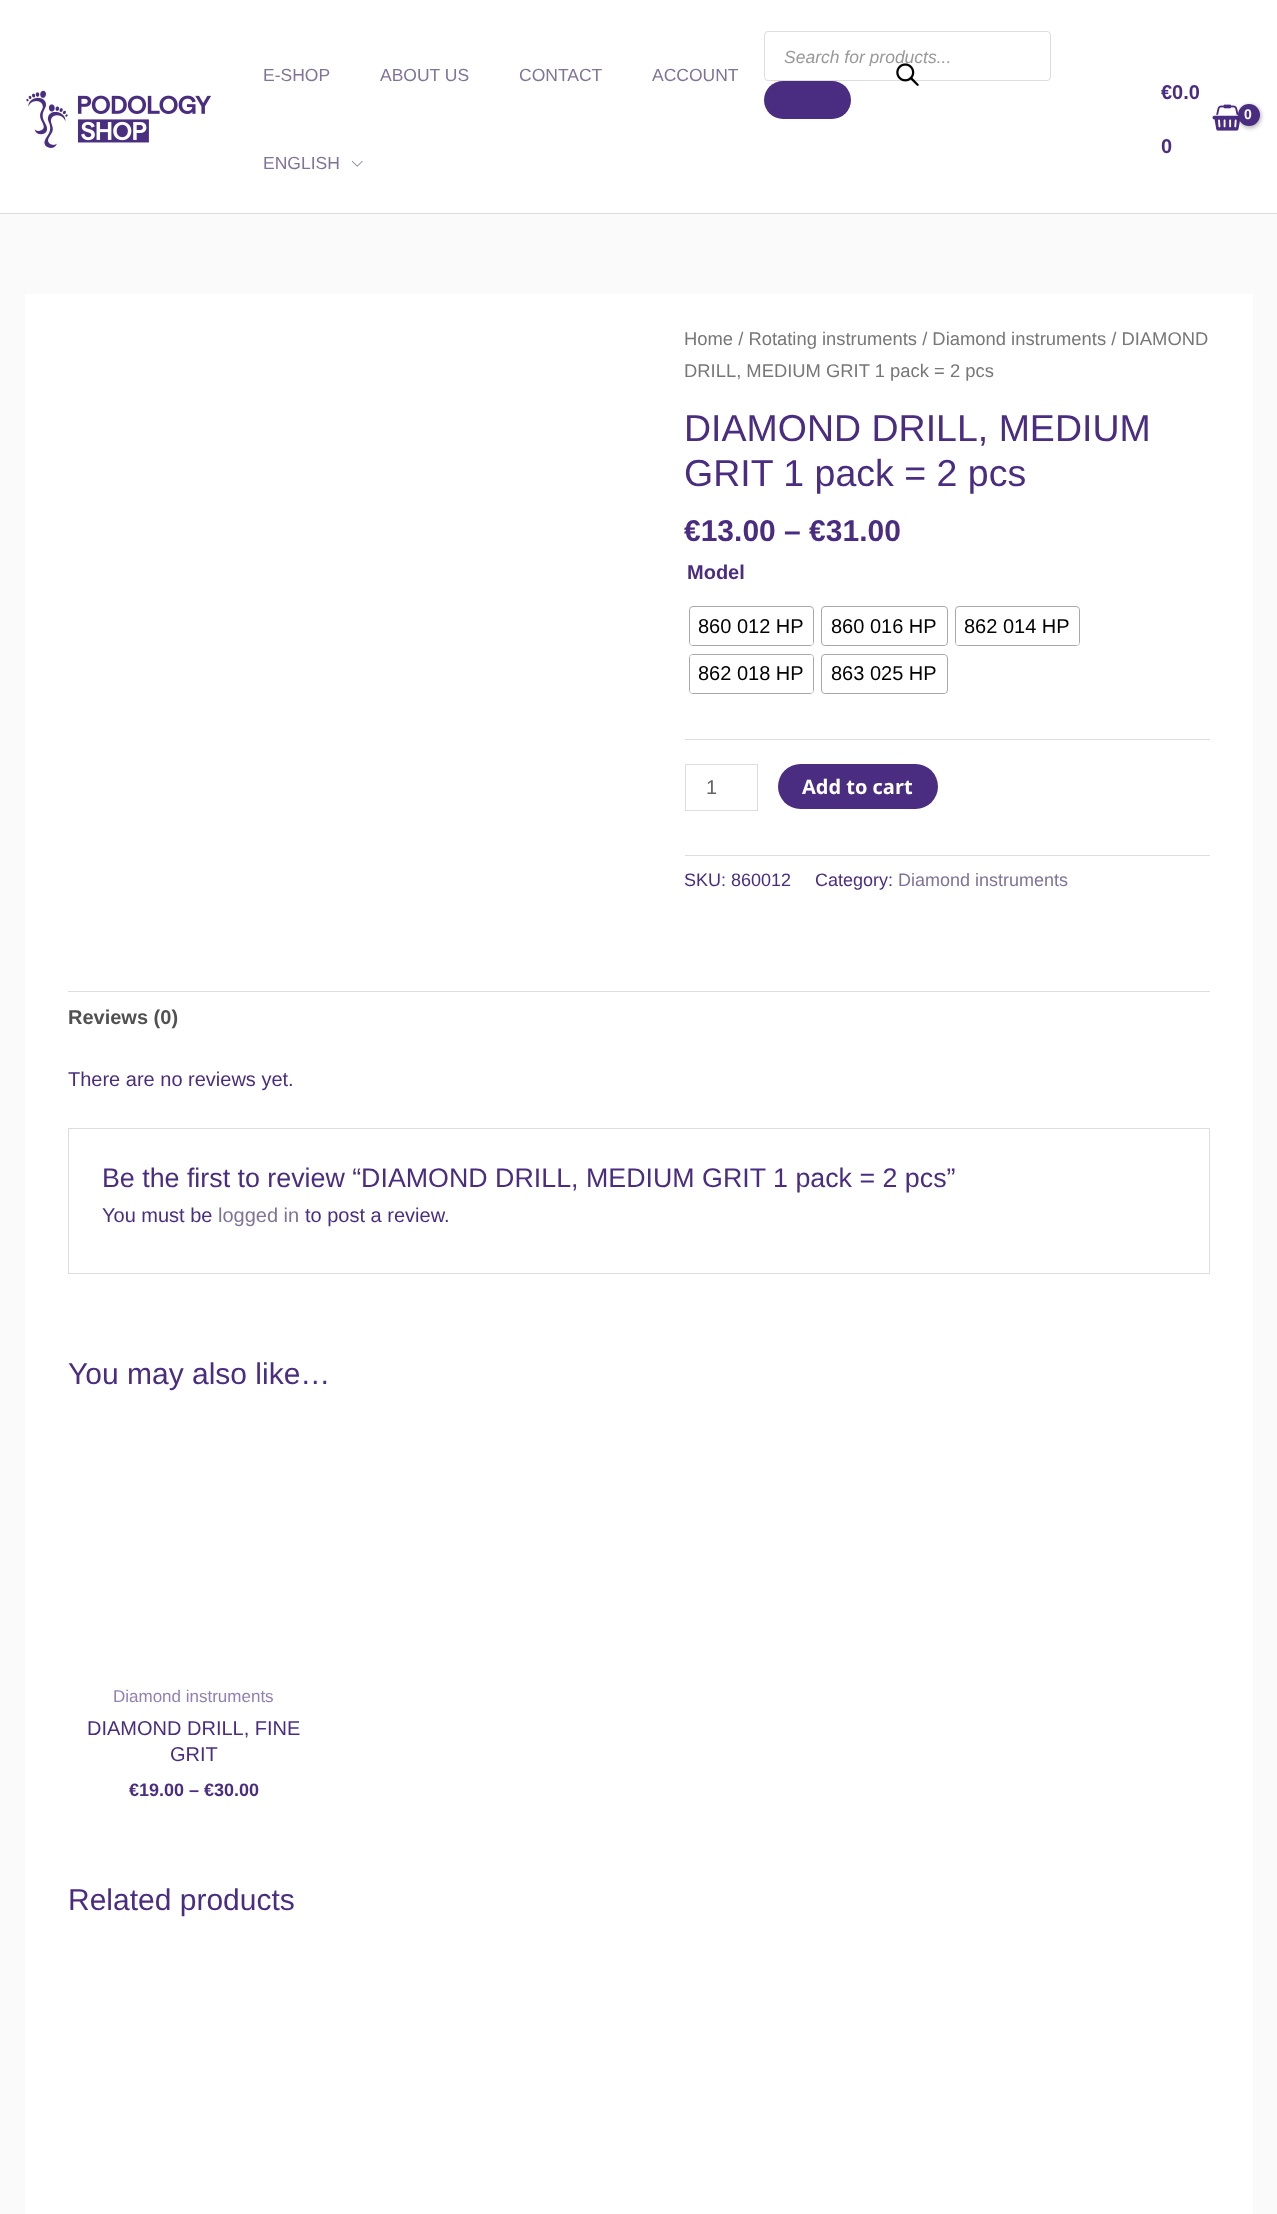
async function draw(canvas) {
  canvas.width = 1277;
  canvas.height = 2214;
  const ctx = canvas.getContext('2d');
  ctx.miterLimit = 4;
  ctx.fontKerning = 'normal';
  function label(s, x, y, font, color) {
    ctx.font = font;
    ctx.fillStyle = color;
    ctx.fillText(s, x, y);
  }
  function rect(x, y, w, h, color) {
    ctx.fillStyle = color;
    ctx.fillRect(x, y, w, h);
  }
  function roundedRect(x, y, w, h, r, color) {
    ctx.fillStyle = color;
    ctx.beginPath();
    ctx.roundRect(x, y, w, h, r);
    ctx.fill();
  }
  async function image(src, x, y, w, h) {
    const img = new Image();
    img.src = src;
    await img.decode();
    ctx.drawImage(img, x, y, w, h);
  }

  rect(0, 0, 1277, 2214, '#fafafa');
  rect(0, 0, 1277, 213, '#fff');
  rect(0, 213, 1277, 1, '#ddd');
  await image('assets/img1.png', 26, 90, 185, 58);
  ctx.beginPath();
  ctx.roundRect(764.5, 31.5, 286, 49, 3.5);
  ctx.strokeStyle = '#ddd';
  ctx.stroke();
  ctx.save();
  ctx.beginPath();
  ctx.rect(784, 46, 247, 20);
  ctx.clip();
  label('Search for products...', 784, 63, 'italic 17.5px Liberation Sans', '#999');
  ctx.restore();
  roundedRect(764, 81, 87, 38, 19, '#4a2d80');
  await image('assets/img2.png', 896, 63, 23, 23);
  label('E-SHOP', 263, 81, '17.5px Liberation Sans', '#807398');
  label('ABOUT US', 380, 81, '17.5px Liberation Sans', '#807398');
  label('CONTACT', 519, 81, '17.5px Liberation Sans', '#807398');
  label('ACCOUNT', 652, 81, '17.5px Liberation Sans', '#807398');
  label('ENGLISH', 263, 169, '17.5px Liberation Sans', '#807398');
  await image('assets/img3.png', 351, 160, 12, 7);
  label('€0.0', 1161, 99, 'bold 20px Liberation Sans', '#4a2d80');
  label('0', 1161, 153, 'bold 20px Liberation Sans', '#4a2d80');
  await image('assets/img4.png', 1212, 104, 28, 27);
  ctx.fillStyle = '#0000004d';
  ctx.filter = 'blur(2px)';
  ctx.beginPath();
  ctx.roundRect(1239, 105, 22, 23, 11);
  ctx.fill();
  ctx.filter = 'none';
  ctx.fillStyle = '#4a2d80';
  ctx.beginPath();
  ctx.arc(1249, 115, 11, 0, 2 * Math.PI);
  ctx.fill();
  ctx.letterSpacing = '-1px';
  label('0', 1244, 119, 'bold 14px Liberation Sans', '#fff');
  rect(25, 294, 1228, 1920, '#fff');
  ctx.letterSpacing = '0px';
  label('Home / Rotating instruments / Diamond instruments / DIAMOND', 684, 345, '18.4px Liberation Sans', '#777');
  label('DRILL, MEDIUM GRIT 1 pack = 2 pcs', 684, 377, '18.4px Liberation Sans', '#777');
  label('DIAMOND DRILL, MEDIUM', 684, 441, '37.5px Liberation Sans', '#4a2d80');
  label('GRIT 1 pack = 2 pcs', 684, 486, '37.5px Liberation Sans', '#4a2d80');
  label('€13.00 – €31.00', 684, 541, 'bold 30px Liberation Sans', '#4a2d80');
  rect(685, 739, 525, 1, '#ddd');
  label('Model', 687, 579, 'bold 20px Liberation Sans', '#4a2d80');
  ctx.beginPath();
  ctx.roundRect(689.5, 606.5, 124, 39, 3.5);
  ctx.strokeStyle = '#a8a8a8';
  ctx.stroke();
  roundedRect(690, 608, 123, 37, 2.5, '#fff');
  label('860 012 HP', 698, 633, '20px Liberation Sans', '#000');
  ctx.beginPath();
  ctx.roundRect(821.5, 606.5, 126, 39, 3.5);
  ctx.stroke();
  roundedRect(823, 608, 123, 37, 2.5, '#fff');
  label('860 016 HP', 831, 633, '20px Liberation Sans', '#000');
  ctx.beginPath();
  ctx.roundRect(955.5, 606.5, 124, 39, 3.5);
  ctx.stroke();
  roundedRect(956, 608, 123, 37, 2.5, '#fff');
  label('862 014 HP', 964, 633, '20px Liberation Sans', '#000');
  ctx.beginPath();
  ctx.roundRect(689.5, 654.5, 124, 39, 3.5);
  ctx.stroke();
  roundedRect(690, 655, 123, 38, 2.5, '#fff');
  label('862 018 HP', 698, 680, '20px Liberation Sans', '#000');
  ctx.beginPath();
  ctx.roundRect(821.5, 654.5, 126, 39, 3.5);
  ctx.stroke();
  roundedRect(823, 655, 123, 38, 2.5, '#fff');
  label('863 025 HP', 831, 680, '20px Liberation Sans', '#000');
  ctx.strokeStyle = '#ddd';
  ctx.strokeRect(685.5, 764.5, 72, 46);
  label('1', 706, 794, '20px Liberation Sans', '#666');
  roundedRect(778, 764, 160, 45, 22.5, '#4a2d80');
  label('Add to cart', 802, 794, 'bold 20px Open Sans', '#fff');
  rect(685, 855, 525, 1, '#ddd');
  label('SKU: 860012', 684, 886, '18px Liberation Sans', '#4a2d80');
  label('Category:', 815, 886, '18px Liberation Sans', '#4a2d80');
  label('Diamond instruments', 898, 886, '18px Liberation Sans', '#807398');
  rect(68, 991, 1142, 1, '#ddd');
  label('Reviews (0)', 68, 1024, 'bold 20px Liberation Sans', '#515151');
  label('There are no reviews yet.', 68, 1086, '20px Liberation Sans', '#4a2d80');
  ctx.strokeRect(68.5, 1128.5, 1141, 145);
  label('Be the first to review “DIAMOND DRILL, MEDIUM GRIT 1 pack = 2 pcs”', 102, 1187, '26.8px Liberation Sans', '#4a2d80');
  label('You must be', 102, 1222, '20px Liberation Sans', '#4a2d80');
  label('logged in', 218, 1222, '20px Liberation Sans', '#807398');
  label('to post a review.', 305, 1222, '20px Liberation Sans', '#4a2d80');
  label('You may also like…', 68, 1384, '30px Liberation Sans', '#4a2d80');
  label('Diamond instruments', 113, 1702, '17px Liberation Sans', '#9281b3');
  label('DIAMOND DRILL, FINE', 87, 1735, '20px Liberation Sans', '#4a2d80');
  label('GRIT', 170, 1761, '20px Liberation Sans', '#4a2d80');
  label('€19.00 – €30.00', 129, 1796, 'bold 18px Liberation Sans', '#4a2d80');
  label('Related products', 68, 1910, '30px Liberation Sans', '#4a2d80');
}

draw(document.querySelector('canvas'));
